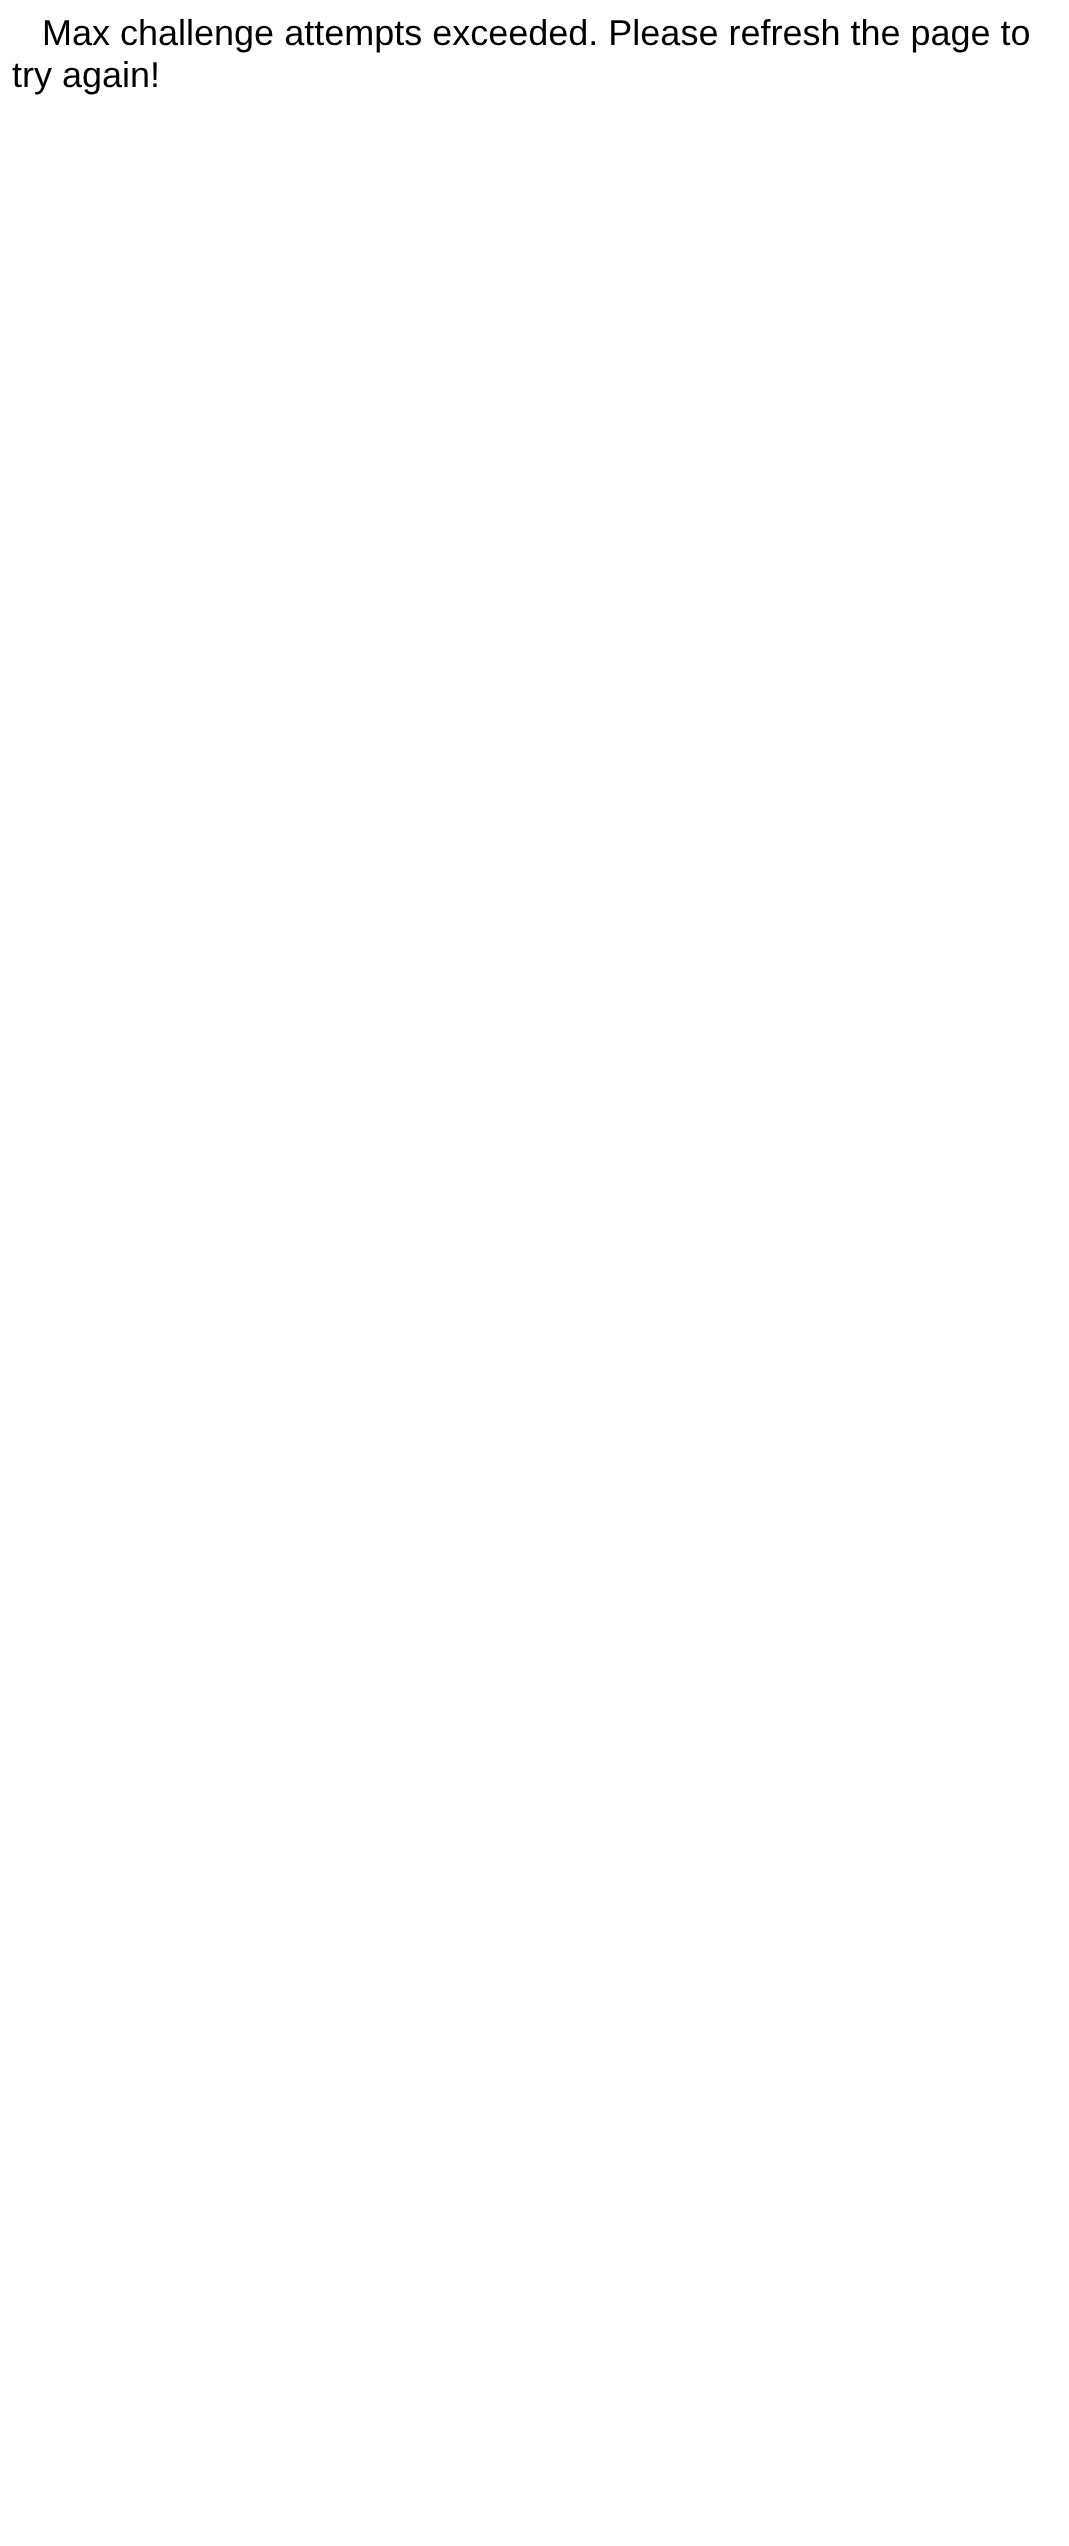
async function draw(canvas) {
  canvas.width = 1069;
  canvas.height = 2546;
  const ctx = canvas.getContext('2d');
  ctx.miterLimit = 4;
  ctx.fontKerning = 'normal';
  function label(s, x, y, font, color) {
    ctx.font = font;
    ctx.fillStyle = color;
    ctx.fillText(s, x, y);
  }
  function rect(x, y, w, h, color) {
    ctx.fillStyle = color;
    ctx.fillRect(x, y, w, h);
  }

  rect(0, 0, 1069, 2546, '#fff');
  label('Max challenge attempts exceeded. Please refresh the page to', 42, 45, '36px Liberation Sans', '#000');
  label('try again!', 12, 87, '36px Liberation Sans', '#000');
}

draw(document.querySelector('canvas'));
